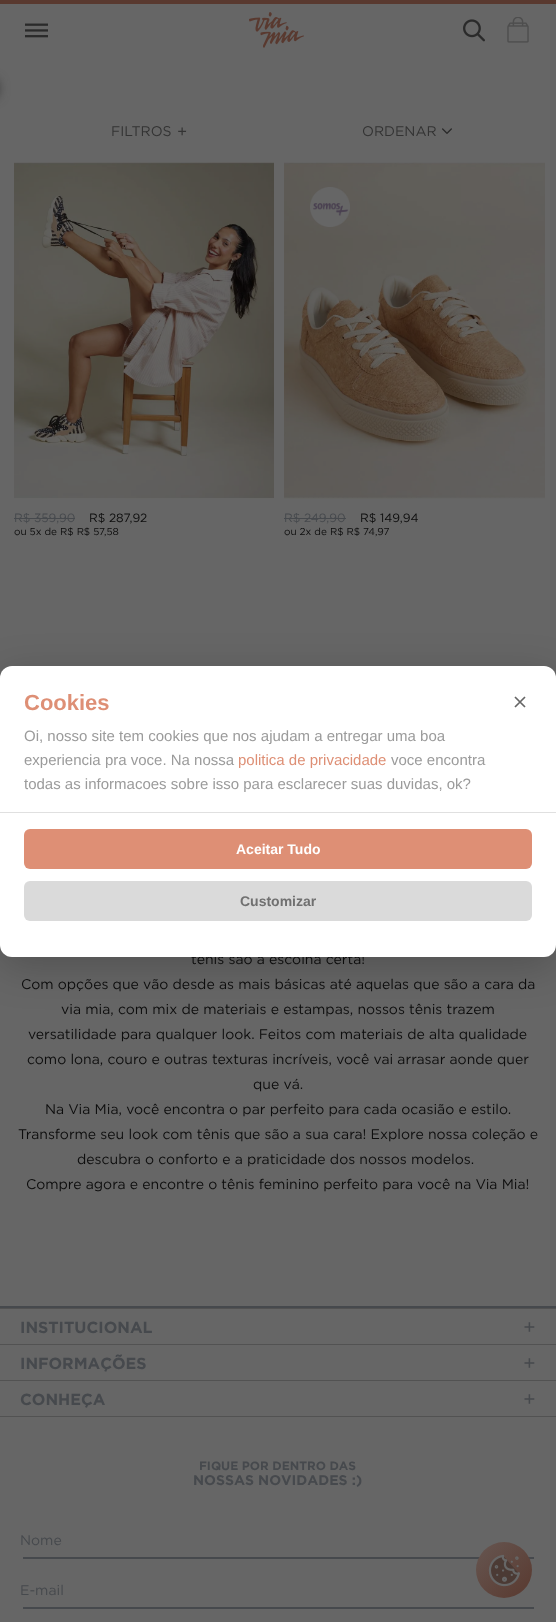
async function draw(canvas) {
  canvas.width = 556;
  canvas.height = 1622;
  const ctx = canvas.getContext('2d');
  ctx.miterLimit = 4;
  ctx.fontKerning = 'normal';
  function label(s, x, y, font, color) {
    ctx.font = font;
    ctx.fillStyle = color;
    ctx.fillText(s, x, y);
  }
  function rect(x, y, w, h, color) {
    ctx.fillStyle = color;
    ctx.fillRect(x, y, w, h);
  }
  function roundedRect(x, y, w, h, r, color) {
    ctx.fillStyle = color;
    ctx.beginPath();
    ctx.roundRect(x, y, w, h, r);
    ctx.fill();
  }
  async function image(src, x, y, w, h) {
    const img = new Image();
    img.src = src;
    await img.decode();
    ctx.drawImage(img, x, y, w, h);
  }
  let gradient, path;

  rect(0, 0, 556, 1622, '#666');
  rect(0, 0, 556, 4, '#59392f');
  await image('assets/img1.png', 249, 12, 55, 36);
  await image('assets/img2.png', 507, 17, 22, 26);
  await image('assets/img3.png', 463, 19, 22, 23);
  ctx.fillStyle = '#2a2a2a';
  ctx.filter = 'blur(6px)';
  ctx.beginPath();
  ctx.rect(-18, 81, 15, 15);
  ctx.fill();
  ctx.filter = 'none';
  await image('assets/img4.png', 25, 23, 23, 15);
  label('FILTROS', 111, 136, '14px Gotham', '#333');
  label('+', 177, 137, '16px Gotham', '#333');
  label('ORDENAR', 362, 136, '14px Gotham', '#333');
  await image('assets/img5.png', 442, 128, 10, 6);
  await image('assets/img6.png', 14, 162, 260, 337);
  label('R$ 359,90', 14, 522, '12px Gotham', '#46494d');
  rect(14, 518, 61, 1, '#46494d');
  label('R$ 287,92', 89, 522, '12px Gotham', '#0d0d0d');
  label('ou 5x de R$ R$ 57,58', 14, 535, '10px Gotham', '#0d0d0d');
  await image('assets/img8.png', 284, 162, 261, 337);
  await image('assets/img7.png', 310, 187, 40, 40);
  label('R$ 249,90', 284, 522, '12px Gotham', '#46494d');
  rect(284, 518, 62, 1, '#46494d');
  label('R$ 149,94', 360, 522, '12px Gotham', '#0d0d0d');
  label('ou 2x de R$ R$ 74,97', 284, 535, '10px Gotham', '#0d0d0d');
  label('tênis são a escolha certa!', 191, 964, '14px Gotham', '#0d0d0d');
  label('Com opções que vão desde as mais básicas até aquelas que são a cara da', 21, 989, '14px Gotham', '#0d0d0d');
  label('via mia, com mix de materiais e estampas, nossos tênis trazem', 61, 1014, '14px Gotham', '#0d0d0d');
  label('versatilidade para qualquer look. Feitos com materiais de alta qualidade', 28, 1039, '14px Gotham', '#0d0d0d');
  label('como lona, couro e outras texturas incríveis, você vai arrasar aonde quer', 27, 1064, '14px Gotham', '#0d0d0d');
  label('que vá.', 253, 1089, '14px Gotham', '#0d0d0d');
  label('Na Via Mia, você encontra o par perfeito para cada ocasião e estilo.', 45, 1114, '14px Gotham', '#0d0d0d');
  label('Transforme seu look com tênis que são a sua cara! Explore nossa coleção e', 18, 1139, '14px Gotham', '#0d0d0d');
  label('descubra o conforto e a praticidade dos nossos modelos.', 77, 1164, '14px Gotham', '#0d0d0d');
  label('Compre agora e encontre o tênis feminino perfeito para você na Via Mia!', 26, 1189, '14px Gotham', '#0d0d0d');
  ctx.fillStyle = '#00000033';
  ctx.filter = 'blur(20px)';
  ctx.beginPath();
  ctx.roundRect(0, 676, 556, 291, 12);
  ctx.fill();
  ctx.filter = 'none';
  roundedRect(0, 666, 556, 291, 12, '#fff');
  rect(0, 812, 556, 1, '#e0e0e0');
  label('Cookies', 24, 710, 'bold 22px Liberation Sans', '#de8f75');
  label('Oi, nosso site tem cookies que nos ajudam a entregar uma boa', 24, 741, '15px Liberation Sans', '#9b9b9b');
  label('experiencia pra voce. Na nossa', 24, 765, '15px Liberation Sans', '#9b9b9b');
  label('politica de privacidade', 238, 765, '15px Liberation Sans', '#de8f75');
  label('voce encontra', 391, 765, '15px Liberation Sans', '#9b9b9b');
  label('todas as informacoes sobre isso para esclarecer suas duvidas, ok?', 24, 789, '15px Liberation Sans', '#9b9b9b');
  roundedRect(24, 829, 508, 40, 6, '#de8f75');
  label('Aceitar Tudo', 236, 854, 'bold 14px Liberation Sans', '#fff');
  roundedRect(24, 881, 508, 40, 6, '#dadada');
  label('Customizar', 240, 906, 'bold 14px Liberation Sans', '#707070');
  path = new Path2D('M525 697L515 707M515 697L525 707');
  ctx.strokeStyle = '#666';
  ctx.lineWidth = 1.7;
  ctx.stroke(path);
  rect(0, 1306, 556, 2, '#46494d');
  rect(0, 1416, 556, 1, '#525252');
  rect(0, 1308, 556, 1, '#525252');
  label('INSTITUCIONAL', 20, 1333, 'bold 16px Gotham', '#46494d');
  label('+', 523, 1334, '20px Gotham', '#46494d');
  rect(0, 1344, 556, 1, '#525252');
  label('INFORMAÇÕES', 20, 1369, 'bold 16px Gotham', '#46494d');
  label('+', 523, 1370, '20px Gotham', '#46494d');
  rect(0, 1380, 556, 1, '#525252');
  label('CONHEÇA', 20, 1405, 'bold 16px Gotham', '#46494d');
  label('+', 523, 1406, '20px Gotham', '#46494d');
  label('FIQUE POR DENTRO DAS', 199, 1470, 'bold 12px Gotham', '#46494d');
  label('NOSSAS NOVIDADES :)', 193, 1485, 'bold 14px Gotham', '#46494d');
  label('Nome', 20, 1545, '14px Gotham', '#46494d');
  rect(23, 1557, 511, 2, '#46494d');
  label('E-mail', 20, 1595, '14px Gotham', '#46494d');
  rect(23, 1607, 511, 2, '#46494d');
  gradient = ctx.createLinearGradient(476, 1542, 532, 1598);
  gradient.addColorStop(0, '#665651');
  gradient.addColorStop(1, '#59392f');
  ctx.fillStyle = gradient;
  ctx.beginPath();
  ctx.arc(504, 1570, 28, 0, 2 * Math.PI);
  ctx.fill();
  await image('assets/img9.png', 488, 1554, 32, 33);
}

draw(document.querySelector('canvas'));
